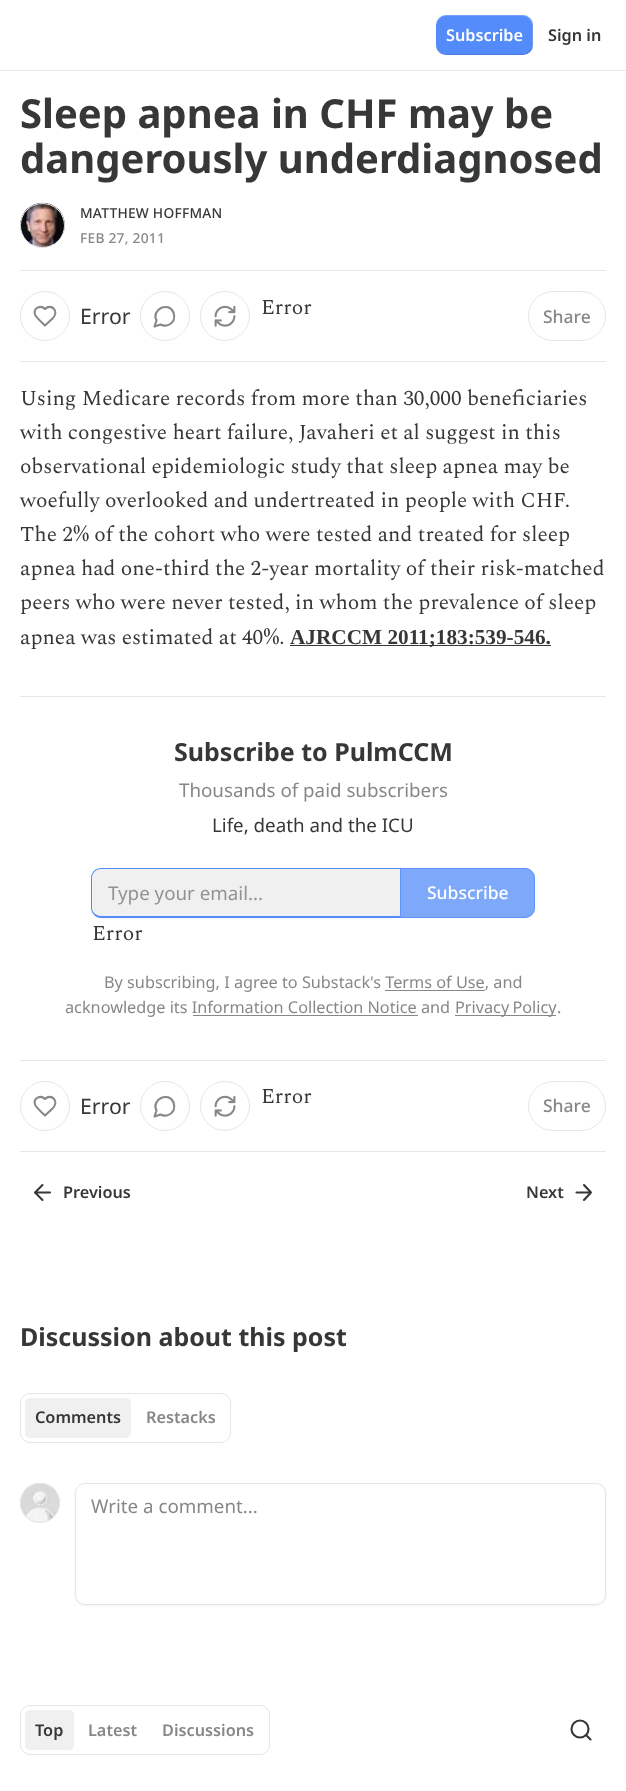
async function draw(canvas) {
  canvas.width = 626;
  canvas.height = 1791;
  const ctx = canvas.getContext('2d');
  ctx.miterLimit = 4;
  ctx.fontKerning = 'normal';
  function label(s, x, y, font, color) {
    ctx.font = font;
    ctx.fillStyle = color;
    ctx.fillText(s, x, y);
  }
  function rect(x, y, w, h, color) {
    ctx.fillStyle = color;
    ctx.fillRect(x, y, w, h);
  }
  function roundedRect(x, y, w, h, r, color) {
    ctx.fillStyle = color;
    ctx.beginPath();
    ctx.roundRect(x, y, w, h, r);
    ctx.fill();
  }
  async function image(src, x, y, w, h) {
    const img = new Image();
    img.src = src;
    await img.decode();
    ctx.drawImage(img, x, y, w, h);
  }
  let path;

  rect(0, 0, 626, 1791, '#fff');
  rect(0, 70, 626, 1, '#e6e6e6');
  roundedRect(436, 15, 97, 40, 10, '#538cfa');
  ctx.fillStyle = '#0000001a';
  path = new Path2D('M436 44V45C436 51 440 55 446 55H523C529 55 533 51 533 45V25C533 23 532 20 531 19C532 20 532 22 532 24V44C532 49 528 54 522 54H446C441 54 436 49 436 44Z');
  ctx.fill(path);
  ctx.fillStyle = '#ffffff33';
  path = new Path2D('M446 16H522C528 16 532 21 532 26V46C532 48 532 50 531 51C532 50 533 47 533 45V25C533 19 529 15 523 15H446C440 15 436 19 436 25V26C436 21 441 16 446 16Z');
  ctx.fill(path);
  label('Subscribe', 446, 41, '600 16.25px Noto Sans', '#fff');
  label('Sign in', 548, 41, '600 16.25px Noto Sans', '#363737');
  label('Sleep apnea in CHF may be', 20, 128, 'bold 40px Noto Sans', '#363737');
  label('dangerously underdiagnosed', 20, 173, 'bold 40px Noto Sans', '#363737');
  ctx.beginPath();
  ctx.arc(42.5, 225.5, 22, 0, 2 * Math.PI);
  ctx.strokeStyle = '#e6e6e6';
  ctx.stroke();
  await image('assets/img1.png', 20, 202, 45, 46);
  ctx.beginPath();
  ctx.arc(42.5, 225.5, 22, 0, 2 * Math.PI);
  ctx.stroke();
  ctx.letterSpacing = '0.25px';
  label('MATTHEW HOFFMAN', 80, 218, '500 13.75px Noto Sans', '#363737');
  label('FEB 27, 2011', 80, 243, '500 13.75px Noto Sans', '#868787');
  rect(20, 270, 586, 1, '#e6e6e6');
  rect(20, 361, 586, 1, '#e6e6e6');
  ctx.beginPath();
  ctx.arc(45, 316, 24.5, 0, 2 * Math.PI);
  ctx.stroke();
  path = new Path2D('M52.5 318.5C60 311 51 303 45 309C40.5 304.5 33 308 35 314.5C36 317.5 42.5 323 45 325.5Z');
  ctx.strokeStyle = '#868787';
  ctx.lineWidth = 2.1;
  ctx.lineCap = 'round';
  ctx.lineJoin = 'round';
  ctx.stroke(path);
  ctx.letterSpacing = '0px';
  label('Error', 80, 324, '21.25px Noto Sans', '#363737');
  ctx.beginPath();
  ctx.arc(165, 316, 24.5, 0, 2 * Math.PI);
  ctx.strokeStyle = '#e6e6e6';
  ctx.lineWidth = 1;
  ctx.stroke();
  path = new Path2D('M160.5 324.5C165.5 327 171 325 173.5 320.5C174.5 318 174.5 315 173.5 312.5C168.5 301 151 309.5 156.5 320.5L154.5 326.5Z');
  ctx.strokeStyle = '#868787';
  ctx.lineWidth = 2.1;
  ctx.stroke(path);
  ctx.beginPath();
  ctx.arc(225, 316, 24.5, 0, 2 * Math.PI);
  ctx.strokeStyle = '#e6e6e6';
  ctx.lineWidth = 1;
  ctx.stroke();
  await image('assets/img2.png', 214, 305, 22, 22);
  label('Error', 261, 314, '21.25px Spectral', '#363737');
  ctx.beginPath();
  ctx.roundRect(528.5, 291.5, 77, 49, 24.5);
  ctx.lineJoin = 'miter';
  ctx.stroke();
  label('Share', 543, 323, '500 17.5px Noto Sans', '#868787');
  label('Using Medicare records from more than 30,000 beneficiaries', 20, 405, '21.25px Spectral', '#363737');
  label('with congestive heart failure, Javaheri et al suggest in this', 20, 439, '21.25px Spectral', '#363737');
  label('observational epidemiologic study that sleep apnea may be', 20, 473, '21.25px Spectral', '#363737');
  label('woefully overlooked and undertreated in people with CHF.', 20, 507, '21.25px Spectral', '#363737');
  label('The 2% of the cohort who were tested and treated for sleep', 20, 541, '21.25px Spectral', '#363737');
  label('apnea had one-third the 2-year mortality of their risk-matched', 20, 575, '21.25px Spectral', '#363737');
  label('peers who were never tested, in whom the prevalence of sleep', 20, 609, '21.25px Spectral', '#363737');
  label('apnea was estimated at 40%.', 20, 644, '21.25px Spectral', '#363737');
  rect(290, 645, 261, 1, '#363737');
  label('AJRCCM 2011;183:539-546.', 290, 644, 'bold 21.25px Liberation Serif', '#363737');
  rect(20, 696, 586, 1, '#e6e6e6');
  label('Subscribe to PulmCCM', 174, 761, 'bold 25px Noto Sans', '#363737');
  label('Thousands of paid subscribers', 179, 797, '18.75px Noto Sans', '#868787');
  label('Life, death and the ICU', 212, 832, '18.75px Noto Sans', '#363737');
  ctx.fillStyle = '#0000000d';
  ctx.filter = 'blur(1px)';
  ctx.beginPath();
  ctx.roundRect(91, 869, 309, 50, 10);
  ctx.fill();
  ctx.filter = 'none';
  ctx.fillStyle = '#f0f0f0';
  ctx.beginPath();
  ctx.roundRect(93, 869, 307, 47, [9, 0, 0, 9]);
  ctx.fill();
  ctx.fillStyle = '#538cfa';
  path = new Path2D('M101 868H400V918H101C96 918 91 913 91 908V878C91 872 96 868 101 868ZM101 869H400V916H101C96 916 92 912 92 908V878C92 873 96 869 101 869Z');
  ctx.fill(path, 'evenodd');
  label('Type your email...', 108, 900, '18.75px Noto Sans', '#929292');
  ctx.fillStyle = '#538cfabf';
  ctx.beginPath();
  ctx.roundRect(400, 868, 135, 50, [0, 10, 10, 0]);
  ctx.fill();
  ctx.beginPath();
  ctx.roundRect(400.5, 868.5, 134, 49, [0, 9.5, 9.5, 0]);
  ctx.strokeStyle = '#538cfabf';
  ctx.stroke();
  label('Subscribe', 427, 899, '500 17.5px Noto Sans', '#fff');
  label('Error', 92, 940, '21.25px Spectral', '#363737');
  label('By subscribing, I agree to Substack\'s Terms of Use, and', 104, 988, '16.25px Noto Sans', '#868787');
  rect(385, 990, 100, 1, '#868787');
  label('acknowledge its Information Collection Notice and', 65, 1013, '16.25px Noto Sans', '#868787');
  rect(455, 1015, 101, 1, '#868787');
  ctx.wordSpacing = '-1px';
  label('Privacy Policy', 455, 1013, '16.25px Noto Sans', '#868787');
  ctx.wordSpacing = '0px';
  label('.', 557, 1013, '16.25px Noto Sans', '#868787');
  rect(193, 1015, 225, 1, '#868787');
  rect(20, 1060, 586, 1, '#e6e6e6');
  rect(20, 1151, 586, 1, '#e6e6e6');
  ctx.beginPath();
  ctx.arc(165, 1106, 24.5, 0, 2 * Math.PI);
  ctx.strokeStyle = '#e6e6e6';
  ctx.stroke();
  path = new Path2D('M160.5 1114.5C165.5 1117 171 1115 173.5 1110.5C174.5 1108 174.5 1105 173.5 1102.5C168.5 1091 151 1099.5 156.5 1110.5L154.5 1116.5Z');
  ctx.strokeStyle = '#868787';
  ctx.lineWidth = 2.1;
  ctx.lineJoin = 'round';
  ctx.stroke(path);
  ctx.beginPath();
  ctx.arc(225, 1106, 24.5, 0, 2 * Math.PI);
  ctx.strokeStyle = '#e6e6e6';
  ctx.lineWidth = 1;
  ctx.stroke();
  await image('assets/img2.png', 214, 1095, 22, 22);
  label('Error', 261, 1103, '21.25px Spectral', '#363737');
  ctx.beginPath();
  ctx.arc(45, 1106, 24.5, 0, 2 * Math.PI);
  ctx.stroke();
  path = new Path2D('M52.5 1108.5C60 1101 51 1093 45 1099C40.5 1094.5 33 1098 35 1104.5C36 1107.5 42.5 1113 45 1115.5Z');
  ctx.strokeStyle = '#868787';
  ctx.lineWidth = 2.1;
  ctx.stroke(path);
  label('Error', 80, 1114, '21.25px Noto Sans', '#363737');
  ctx.beginPath();
  ctx.roundRect(528.5, 1081.5, 77, 49, 24.5);
  ctx.strokeStyle = '#e6e6e6';
  ctx.lineWidth = 1;
  ctx.lineJoin = 'miter';
  ctx.stroke();
  label('Share', 543, 1112, '500 17.5px Noto Sans', '#868787');
  path = new Path2D('M42.5 1200L35 1192.5L42.5 1185M50 1192.5H35');
  ctx.strokeStyle = '#363737';
  ctx.lineWidth = 2.1;
  ctx.lineJoin = 'round';
  ctx.stroke(path);
  label('Previous', 63, 1198, '600 16.25px Noto Sans', '#363737');
  label('Next', 526, 1198, '600 16.25px Noto Sans', '#363737');
  path = new Path2D('M576.5 1192.5H591M584 1185L591 1192.5L584 1200');
  ctx.stroke(path);
  label('Discussion about this post', 20, 1346, 'bold 25px Noto Sans', '#363737');
  ctx.beginPath();
  ctx.roundRect(20.5, 1393.5, 210, 49, 9.5);
  ctx.strokeStyle = '#e6e6e6';
  ctx.lineWidth = 1;
  ctx.lineJoin = 'miter';
  ctx.stroke();
  roundedRect(25, 1398, 106, 40, 5, '#f0f0f0');
  label('Restacks', 146, 1423, '600 16.25px Noto Sans', '#868787');
  label('Comments', 35, 1423, '600 16.25px Noto Sans', '#363737');
  ctx.beginPath();
  ctx.arc(40, 1503, 19.5, 0, 2 * Math.PI);
  ctx.stroke();
  await image('assets/img3.png', 20, 1483, 40, 39);
  ctx.beginPath();
  ctx.arc(40, 1503, 19.5, 0, 2 * Math.PI);
  ctx.stroke();
  ctx.fillStyle = '#0000000d';
  ctx.filter = 'blur(1px)';
  ctx.beginPath();
  ctx.roundRect(75, 1484, 531, 122, 10);
  ctx.fill();
  ctx.filter = 'none';
  ctx.fillStyle = '#fff';
  ctx.beginPath();
  ctx.roundRect(75.5, 1483.5, 530, 121, 9.5);
  ctx.fill();
  ctx.stroke();
  label('Write a comment...', 91, 1513, '18.75px Noto Sans', '#868787');
  ctx.beginPath();
  ctx.roundRect(20.5, 1705.5, 249, 49, 9.5);
  ctx.stroke();
  roundedRect(25, 1710, 49, 40, 5, '#f0f0f0');
  label('Discussions', 162, 1736, '600 16.25px Noto Sans', '#868787');
  label('Top', 35, 1736, '600 16.25px Noto Sans', '#363737');
  label('Latest', 88, 1736, '600 16.25px Noto Sans', '#868787');
  ctx.beginPath();
  ctx.arc(580, 1729, 8.5, 0, 2 * Math.PI);
  ctx.strokeStyle = '#363737';
  ctx.lineWidth = 2.1;
  ctx.stroke();
  path = new Path2D('M590.5 1739.5L586 1735');
  ctx.lineJoin = 'round';
  ctx.stroke(path);
}

draw(document.querySelector('canvas'));
